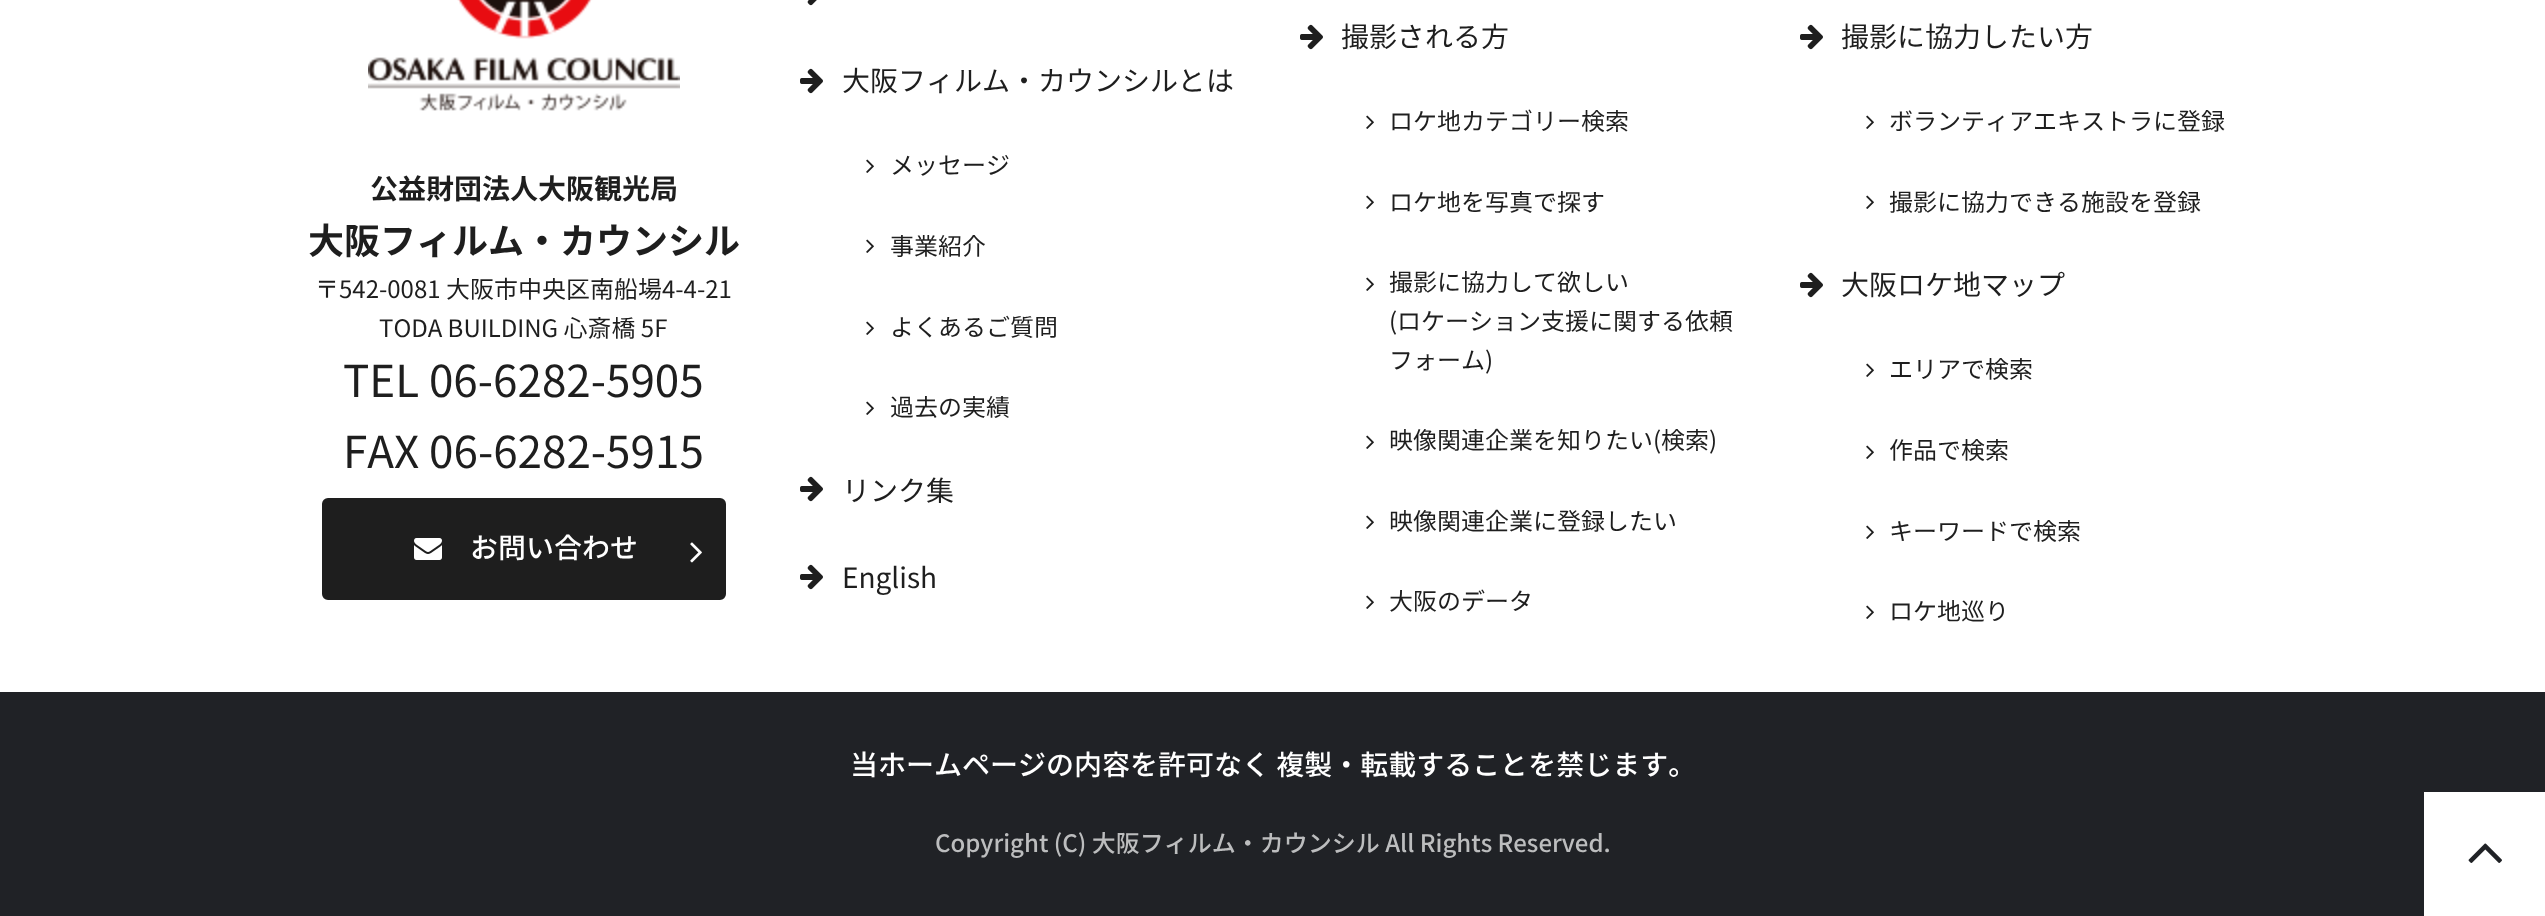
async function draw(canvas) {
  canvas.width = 2545;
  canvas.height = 916;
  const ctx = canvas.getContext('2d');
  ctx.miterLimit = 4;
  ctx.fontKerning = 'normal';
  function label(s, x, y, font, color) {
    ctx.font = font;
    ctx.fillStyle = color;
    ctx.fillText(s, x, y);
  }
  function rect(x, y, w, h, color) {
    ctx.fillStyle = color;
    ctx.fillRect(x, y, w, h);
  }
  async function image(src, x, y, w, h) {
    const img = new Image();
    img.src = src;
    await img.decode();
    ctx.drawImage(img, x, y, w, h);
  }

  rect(0, 0, 2545, 916, '#fff');
  await image('assets/img1.png', 368, 0, 312, 111);
  label('公益財団法人大阪観光局', 370, 199, 'bold 28px Noto Sans CJK JP', '#1e1e1e');
  label('大阪フィルム・カウンシル', 308, 254, 'bold 36px Noto Sans CJK JP', '#1e1e1e');
  label('〒542-0081 大阪市中央区南船場4-4-21', 315, 298, '24px Noto Sans CJK JP', '#1e1e1e');
  label('TODA BUILDING 心斎橋 5F', 379, 337, '24px Noto Sans CJK JP', '#1e1e1e');
  label('TEL 06-6282-5905', 343, 397, '44px Noto Sans CJK JP', '#1e1e1e');
  label('FAX 06-6282-5915', 343, 468, '44px Noto Sans CJK JP', '#1e1e1e');
  ctx.beginPath();
  ctx.roundRect(324, 500, 400, 98, 4);
  ctx.fill();
  ctx.strokeStyle = '#1e1e1e';
  ctx.lineWidth = 4;
  ctx.stroke();
  await image('assets/img2.png', 414, 538, 28, 22);
  label('お問い合わせ', 470, 558, '500 28px Noto Sans CJK JP', '#fff');
  await image('assets/img3.png', 690, 542, 12, 21);
  await image('assets/img4.png', 807, 0, 10, 6);
  await image('assets/img5.png', 800, 68, 23, 26);
  label('大阪フィルム・カウンシルとは', 842, 91, '28px Noto Sans CJK JP', '#1e1e1e');
  await image('assets/img6.png', 866, 159, 8, 14);
  label('メッセージ', 890, 174, '24px Noto Sans CJK JP', '#1e1e1e');
  await image('assets/img6.png', 866, 239, 8, 14);
  label('事業紹介', 890, 255, '24px Noto Sans CJK JP', '#1e1e1e');
  await image('assets/img6.png', 866, 321, 8, 14);
  label('よくあるご質問', 890, 336, '24px Noto Sans CJK JP', '#1e1e1e');
  await image('assets/img6.png', 866, 401, 8, 14);
  label('過去の実績', 890, 416, '24px Noto Sans CJK JP', '#1e1e1e');
  await image('assets/img5.png', 800, 476, 23, 26);
  label('リンク集', 842, 501, '28px Noto Sans CJK JP', '#1e1e1e');
  await image('assets/img5.png', 800, 564, 23, 26);
  label('English', 842, 588, '28px Noto Sans CJK JP', '#1e1e1e');
  await image('assets/img5.png', 1300, 24, 23, 26);
  label('撮影される方', 1341, 47, '28px Noto Sans CJK JP', '#1e1e1e');
  await image('assets/img6.png', 1366, 115, 8, 14);
  label('ロケ地カテゴリー検索', 1389, 130, '24px Noto Sans CJK JP', '#1e1e1e');
  await image('assets/img6.png', 1366, 195, 8, 14);
  label('ロケ地を写真で探す', 1389, 211, '24px Noto Sans CJK JP', '#1e1e1e');
  await image('assets/img6.png', 1366, 277, 8, 14);
  label('撮影に協力して欲しい', 1389, 291, '24px Noto Sans CJK JP', '#1e1e1e');
  label('(ロケーション支援に関する依頼', 1389, 330, '24px Noto Sans CJK JP', '#1e1e1e');
  label('フォーム)', 1389, 369, '24px Noto Sans CJK JP', '#1e1e1e');
  await image('assets/img6.png', 1366, 435, 8, 14);
  label('映像関連企業を知りたい(検索)', 1389, 449, '24px Noto Sans CJK JP', '#1e1e1e');
  await image('assets/img6.png', 1366, 515, 8, 14);
  label('映像関連企業に登録したい', 1389, 530, '24px Noto Sans CJK JP', '#1e1e1e');
  await image('assets/img6.png', 1366, 595, 8, 14);
  label('大阪のデータ', 1389, 610, '24px Noto Sans CJK JP', '#1e1e1e');
  await image('assets/img5.png', 1800, 24, 23, 26);
  label('撮影に協力したい方', 1841, 47, '28px Noto Sans CJK JP', '#1e1e1e');
  await image('assets/img6.png', 1866, 115, 8, 14);
  label('ボランティアエキストラに登録', 1889, 130, '24px Noto Sans CJK JP', '#1e1e1e');
  await image('assets/img6.png', 1866, 195, 8, 14);
  label('撮影に協力できる施設を登録', 1889, 211, '24px Noto Sans CJK JP', '#1e1e1e');
  await image('assets/img5.png', 1800, 272, 23, 26);
  label('大阪ロケ地マップ', 1841, 295, '28px Noto Sans CJK JP', '#1e1e1e');
  await image('assets/img6.png', 1866, 363, 8, 14);
  label('エリアで検索', 1889, 378, '24px Noto Sans CJK JP', '#1e1e1e');
  await image('assets/img6.png', 1866, 445, 8, 14);
  label('作品で検索', 1889, 459, '24px Noto Sans CJK JP', '#1e1e1e');
  await image('assets/img6.png', 1866, 525, 8, 14);
  label('キーワードで検索', 1889, 540, '24px Noto Sans CJK JP', '#1e1e1e');
  await image('assets/img6.png', 1866, 605, 8, 14);
  label('ロケ地巡り', 1889, 620, '24px Noto Sans CJK JP', '#1e1e1e');
  rect(0, 692, 2545, 224, '#202226');
  label('当ホームページの内容を許可なく 複製・転載することを禁じます。', 850, 775, '500 28px Noto Sans CJK JP', '#fff');
  label('Copyright (C) 大阪フィルム・カウンシル All Rights Reserved.', 935, 852, '500 24px Noto Sans CJK JP', '#bcbdbe');
  rect(2424, 792, 121, 124, '#fff');
  await image('assets/img7.png', 2468, 843, 34, 20);
}

draw(document.querySelector('canvas'));
